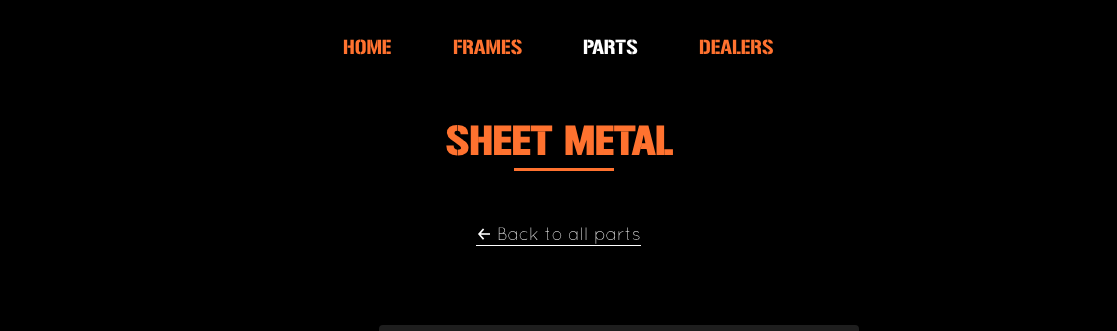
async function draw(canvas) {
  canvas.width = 1117;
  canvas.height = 331;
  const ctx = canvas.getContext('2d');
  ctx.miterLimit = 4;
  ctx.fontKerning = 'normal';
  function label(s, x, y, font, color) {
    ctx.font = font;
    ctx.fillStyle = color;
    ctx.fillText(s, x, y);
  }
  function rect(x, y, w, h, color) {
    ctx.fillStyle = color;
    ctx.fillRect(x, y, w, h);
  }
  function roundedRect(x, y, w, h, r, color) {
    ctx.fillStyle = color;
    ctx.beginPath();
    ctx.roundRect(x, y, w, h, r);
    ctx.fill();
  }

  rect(0, 0, 1117, 331, '#000');
  label('HOME', 343, 54, '18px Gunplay', '#ff722f');
  label('FRAMES', 453, 54, '18px Gunplay', '#ff722f');
  label('PARTS', 583, 54, '18px Gunplay', '#fff');
  label('DEALERS', 699, 54, '18px Gunplay', '#ff722f');
  label('SHEET METAL', 445, 155, 'bold 36px Gunplay', '#ff722f');
  rect(514, 168, 100, 3, '#ff722f');
  label('←', 476, 240, '18px Fira Sans', '#fff');
  rect(476, 245, 165, 1, '#fff');
  label('Back to all parts', 497, 240, '300 18px Quicksand', '#fff');
  roundedRect(379, 325, 480, 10, 4, '#1e1e1e');
}

draw(document.querySelector('canvas'));
